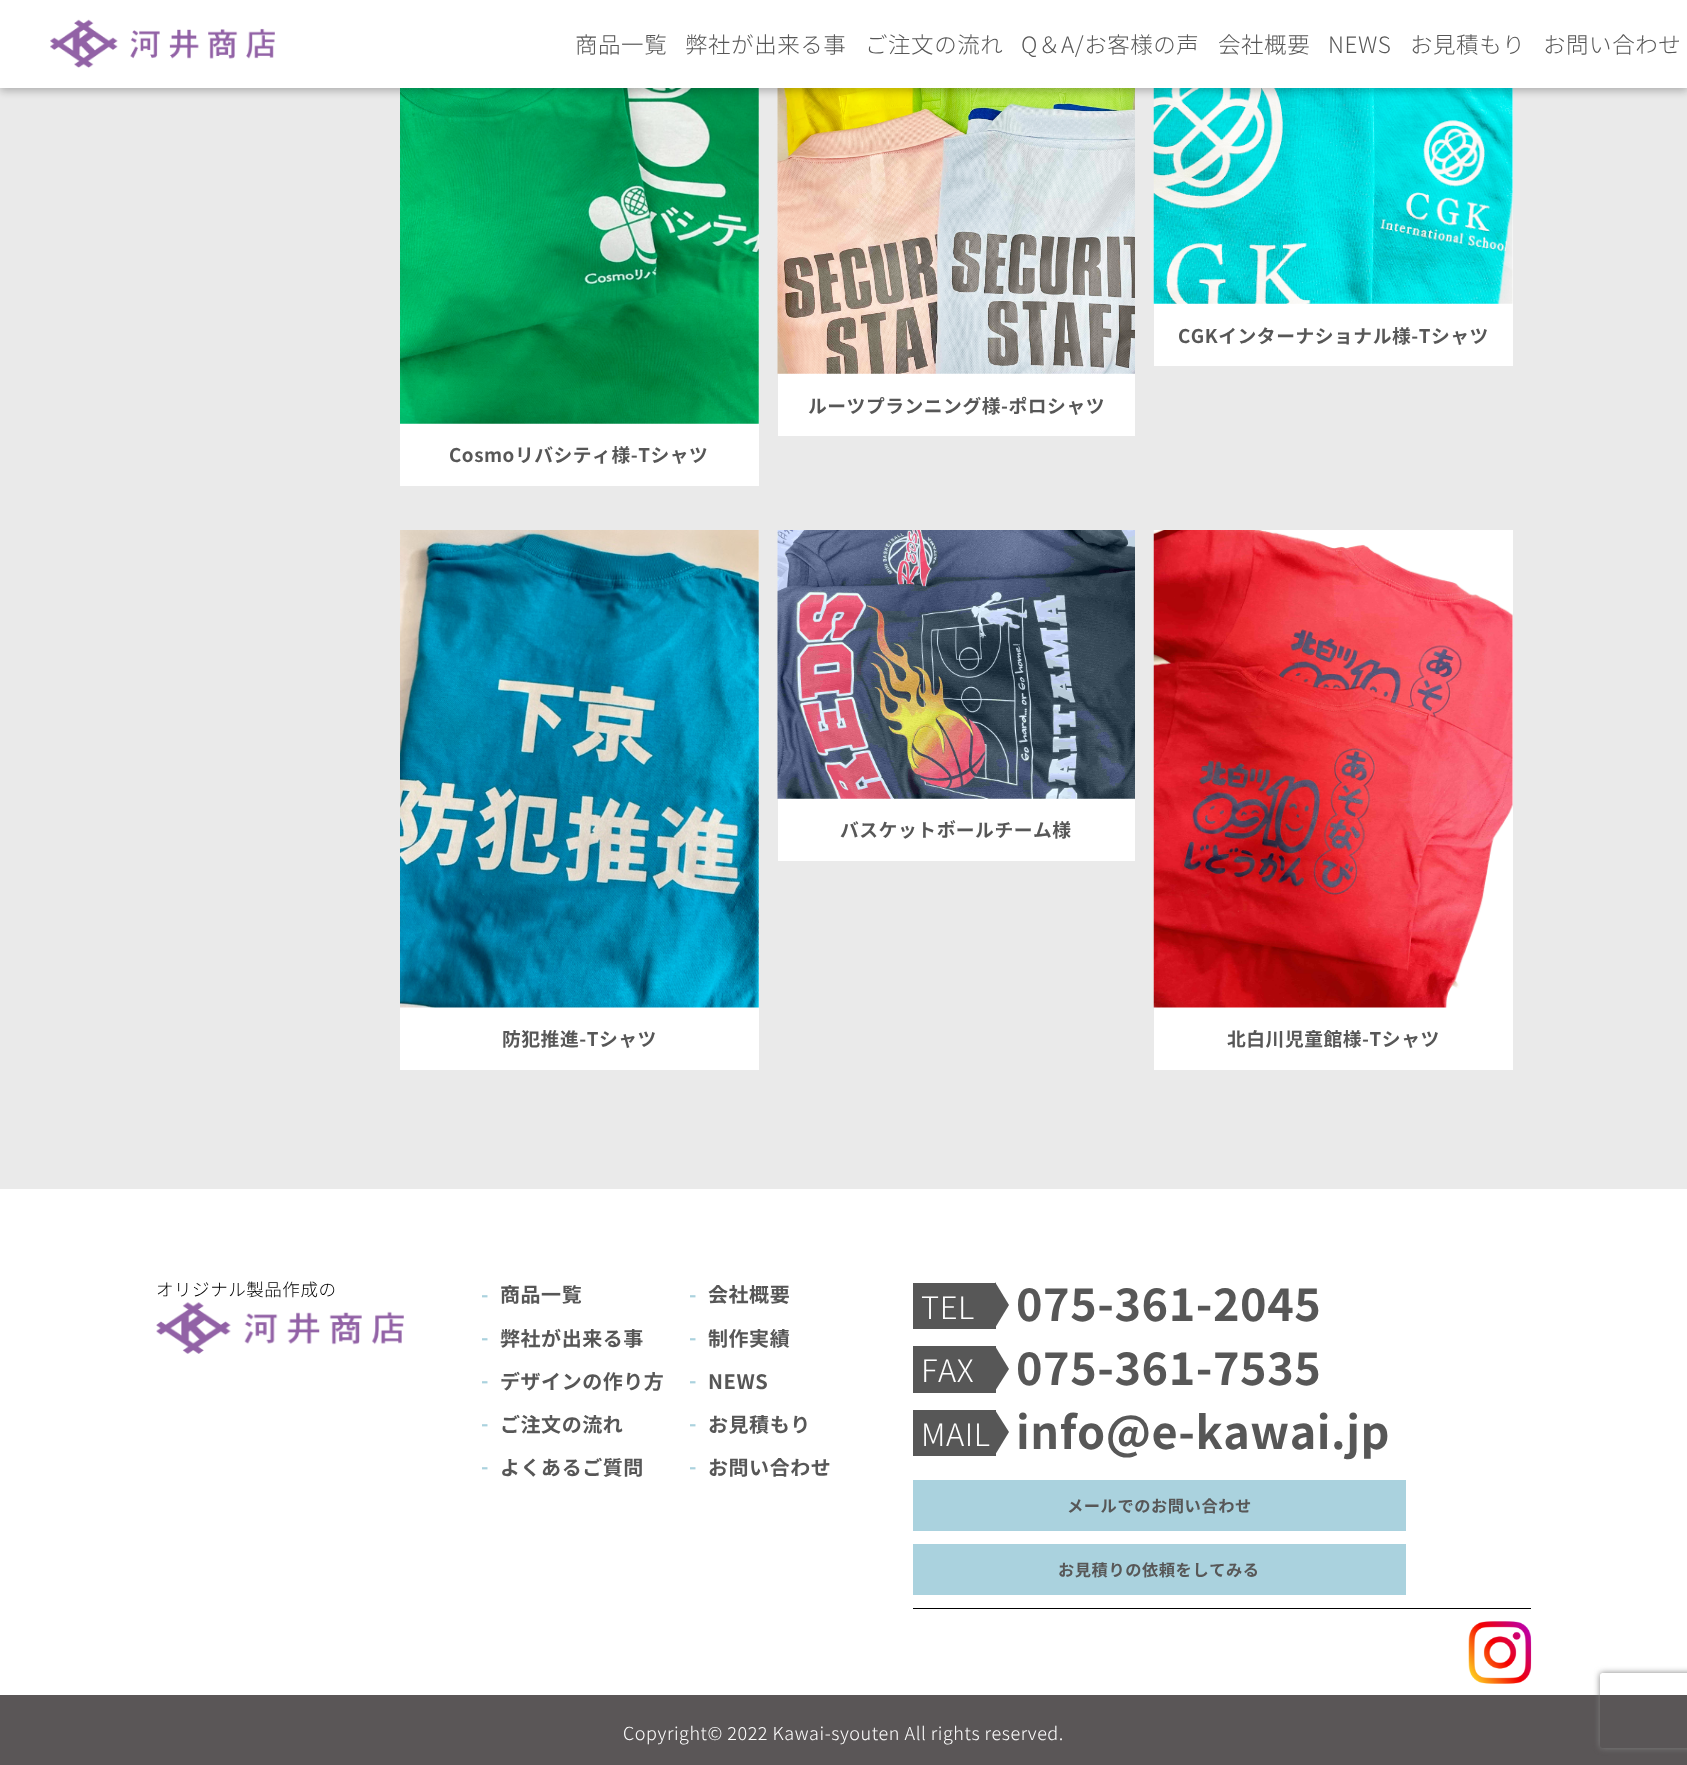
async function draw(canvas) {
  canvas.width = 1687;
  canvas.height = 1765;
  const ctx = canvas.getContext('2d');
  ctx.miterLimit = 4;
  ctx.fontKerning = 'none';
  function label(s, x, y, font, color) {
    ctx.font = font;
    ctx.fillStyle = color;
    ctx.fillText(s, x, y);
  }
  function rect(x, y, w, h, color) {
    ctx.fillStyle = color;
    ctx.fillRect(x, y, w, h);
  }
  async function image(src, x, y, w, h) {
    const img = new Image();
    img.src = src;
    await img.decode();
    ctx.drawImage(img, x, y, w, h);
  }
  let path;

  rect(0, 0, 1687, 1765, '#fff');
  rect(0, 88, 1687, 1101, '#eaeaea');
  rect(1154, 88, 359, 278, '#fff');
  await image('assets/img2.png', 1153, 88, 360, 216);
  rect(778, 373, 357, 63, '#fff');
  await image('assets/img3.png', 777, 88, 358, 286);
  rect(400, 88, 359, 398, '#fff');
  await image('assets/img4.png', 400, 88, 359, 336);
  ctx.fillStyle = '#00000040';
  ctx.filter = 'blur(4px)';
  ctx.beginPath();
  ctx.rect(0, 4, 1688, 87);
  ctx.fill();
  ctx.filter = 'none';
  rect(0, 0, 1687, 88, '#fff');
  await image('assets/img1.png', 50, 19, 225, 49);
  ctx.letterSpacing = '0.55px';
  label('商品一覧', 575, 53, '300 22.5px Noto Sans JP', '#575757');
  label('弊社が出来る事', 685, 53, '300 22.5px Noto Sans JP', '#575757');
  label('ご注文の流れ', 865, 53, '300 22.5px Noto Sans JP', '#575757');
  label('Q＆A/お客様の声', 1021, 53, '300 22.5px Noto Sans JP', '#575757');
  label('会社概要', 1218, 53, '300 22.5px Noto Sans JP', '#575757');
  label('NEWS', 1328, 53, '300 22.5px Noto Sans JP', '#575757');
  label('お見積もり', 1410, 53, '300 22.5px Noto Sans JP', '#575757');
  label('お問い合わせ', 1543, 53, '300 22.5px Noto Sans JP', '#575757');
  label('CGKインターナショナル様-Tシャツ', 1178, 343, 'bold 18.75px Noto Sans JP', '#575757');
  label('ルーツプランニング様-ポロシャツ', 808, 413, 'bold 18.75px Noto Sans JP', '#575757');
  label('Cosmoリバシティ様-Tシャツ', 449, 462, 'bold 18.75px Noto Sans JP', '#575757');
  rect(778, 798, 357, 63, '#fff');
  await image('assets/img5.png', 777, 530, 358, 269);
  label('バスケットボールチーム様', 840, 837, 'bold 18.75px Noto Sans JP', '#575757');
  rect(400, 530, 359, 540, '#fff');
  await image('assets/img6.png', 400, 530, 359, 478);
  label('防犯推進-Tシャツ', 502, 1046, 'bold 18.75px Noto Sans JP', '#575757');
  rect(1154, 530, 359, 540, '#fff');
  await image('assets/img7.png', 1153, 530, 360, 478);
  label('北白川児童館様-Tシャツ', 1227, 1046, 'bold 18.75px Noto Sans JP', '#575757');
  label('オリジナル製品作成の', 156, 1296, '300 17.5px Noto Sans JP', '#000');
  await image('assets/img8.png', 156, 1302, 248, 52);
  label('-', 481, 1302, 'bold 20px Noto Sans JP', '#aad2de');
  label('商品一覧', 500, 1302, 'bold 20px Noto Sans JP', '#575757');
  label('-', 689, 1302, 'bold 20px Noto Sans JP', '#aad2de');
  label('会社概要', 708, 1302, 'bold 20px Noto Sans JP', '#575757');
  label('-', 481, 1345, 'bold 20px Noto Sans JP', '#aad2de');
  label('弊社が出来る事', 500, 1346, 'bold 20px Noto Sans JP', '#575757');
  label('-', 689, 1345, 'bold 20px Noto Sans JP', '#aad2de');
  label('制作実績', 708, 1346, 'bold 20px Noto Sans JP', '#575757');
  label('-', 481, 1388, 'bold 20px Noto Sans JP', '#aad2de');
  label('デザインの作り方', 500, 1389, 'bold 20px Noto Sans JP', '#575757');
  label('-', 689, 1388, 'bold 20px Noto Sans JP', '#aad2de');
  label('NEWS', 708, 1389, 'bold 20px Noto Sans JP', '#575757');
  label('-', 481, 1431, 'bold 20px Noto Sans JP', '#aad2de');
  label('ご注文の流れ', 500, 1432, 'bold 20px Noto Sans JP', '#575757');
  label('-', 689, 1431, 'bold 20px Noto Sans JP', '#aad2de');
  label('お見積もり', 708, 1432, 'bold 20px Noto Sans JP', '#575757');
  label('-', 481, 1474, 'bold 20px Noto Sans JP', '#aad2de');
  label('よくあるご質問', 500, 1475, 'bold 20px Noto Sans JP', '#575757');
  label('-', 689, 1474, 'bold 20px Noto Sans JP', '#aad2de');
  label('お問い合わせ', 708, 1475, 'bold 20px Noto Sans JP', '#575757');
  rect(913, 1283, 83, 46, '#575757');
  label('TEL', 921, 1319, '300 31px Noto Sans JP', '#fff');
  ctx.fillStyle = '#575757';
  path = new Path2D('M995 1328V1282L1009 1305Z');
  ctx.fill(path);
  label('075-361-2045', 1016, 1321, 'bold 45px Noto Sans JP', '#575757');
  rect(913, 1346, 83, 47, '#575757');
  label('FAX', 921, 1382, '300 31px Noto Sans JP', '#fff');
  ctx.fillStyle = '#575757';
  path = new Path2D('M995 1391V1346L1009 1369Z');
  ctx.fill(path);
  label('075-361-7535', 1016, 1385, 'bold 45px Noto Sans JP', '#575757');
  rect(913, 1410, 83, 46, '#575757');
  label('MAIL', 921, 1446, '300 31px Noto Sans JP', '#fff');
  ctx.fillStyle = '#575757';
  path = new Path2D('M995 1455V1410L1009 1432Z');
  ctx.fill(path);
  label('info@e-kawai.jp', 1016, 1449, 'bold 45px Noto Sans JP', '#575757');
  rect(913, 1480, 493, 51, '#aad2de');
  label('メールでのお問い合わせ', 1067, 1512, 'bold 16.25px Noto Sans JP', '#575757');
  rect(913, 1544, 493, 51, '#aad2de');
  label('お見積りの依頼をしてみる', 1058, 1576, 'bold 16.25px Noto Sans JP', '#575757');
  rect(913, 1608, 618, 1, '#000');
  await image('assets/img9.png', 1468, 1621, 64, 63);
  rect(0, 1695, 1687, 70, '#5a5657');
  label('Copyright© 2022 Kawai-syouten All rights reserved.', 623, 1740, '300 18px Noto Sans JP', '#fff');
  ctx.save();
  path = new Path2D('M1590 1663H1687V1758H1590ZM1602.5 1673H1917.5C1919 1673 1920 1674 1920 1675.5V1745.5C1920 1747 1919 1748 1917.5 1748H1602.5C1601 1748 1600 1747 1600 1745.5V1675.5C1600 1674 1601 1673 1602.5 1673Z');
  ctx.clip(path, 'evenodd');
  ctx.fillStyle = '#808080';
  ctx.filter = 'blur(3px)';
  ctx.beginPath();
  ctx.roundRect(1600, 1673, 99, 75, 2.5);
  ctx.fill();
  ctx.filter = 'none';
  ctx.restore();
}

draw(document.querySelector('canvas'));
